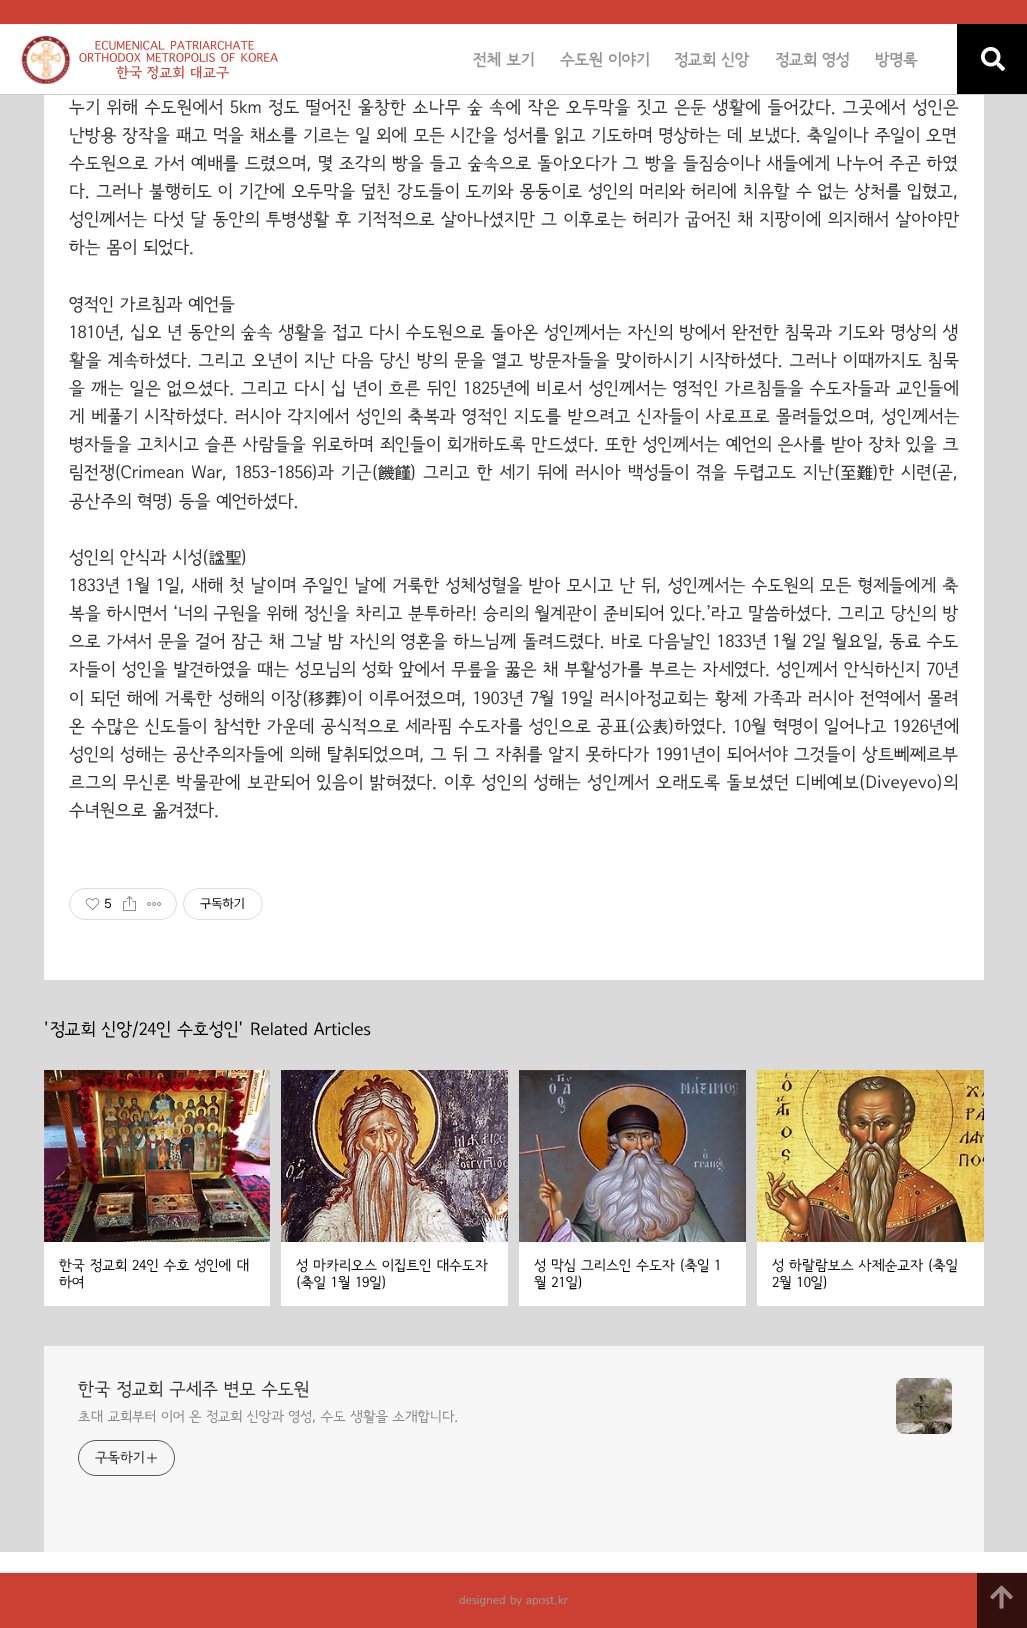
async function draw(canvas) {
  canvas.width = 1027;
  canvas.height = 1628;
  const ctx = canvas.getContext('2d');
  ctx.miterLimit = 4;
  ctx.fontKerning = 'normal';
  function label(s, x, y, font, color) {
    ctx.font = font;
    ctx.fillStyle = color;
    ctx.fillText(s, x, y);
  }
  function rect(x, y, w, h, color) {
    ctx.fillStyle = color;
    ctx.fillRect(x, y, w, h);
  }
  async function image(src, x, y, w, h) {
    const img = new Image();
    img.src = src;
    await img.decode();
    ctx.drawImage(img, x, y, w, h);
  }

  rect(0, 0, 1027, 1628, '#fff');
  rect(0, 94, 1027, 1, '#cacaca');
  rect(0, 0, 1027, 24, '#cc4033');
  await image('assets/img1.png', 21, 36, 257, 48);
  label('전체 보기', 473, 65, 'bold 16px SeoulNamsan', '#959595');
  label('수도원 이야기', 560, 65, 'bold 16px SeoulNamsan', '#959595');
  label('정교회 신앙', 674, 65, 'bold 16px SeoulNamsan', '#959595');
  label('정교회 영성', 775, 65, 'bold 16px SeoulNamsan', '#959595');
  label('방명록', 875, 65, 'bold 16px SeoulNamsan', '#959595');
  rect(957, 24, 70, 70, '#000');
  await image('assets/img2.png', 981, 47, 24, 24);
  rect(0, 95, 1027, 1457, '#dadada');
  rect(44, 95, 940, 885, '#fff');
  ctx.letterSpacing = '0.3px';
  label('누기 위해 수도원에서 5km 정도 떨어진 울창한 소나무 숲 속에 작은 오두막을 짓고 은둔 생활에 들어갔다. 그곳에서 성인은', 69, 113, '17.6px SeoulNamsan', '#333');
  ctx.letterSpacing = '0px';
  label('난방용 장작을 패고 먹을 채소를 기르는 일 외에 모든 시간을 성서를 읽고 기도하며 명상하는 데 보냈다. 축일이나 주일이 오면', 69, 141, '17.6px SeoulNamsan', '#333');
  ctx.letterSpacing = '0.1px';
  label('수도원으로 가서 예배를 드렸으며, 몇 조각의 빵을 들고 숲속으로 돌아오다가 그 빵을 들짐승이나 새들에게 나누어 주곤 하였', 69, 169, '17.6px SeoulNamsan', '#333');
  ctx.letterSpacing = '0.08px';
  label('다. 그러나 불행히도 이 기간에 오두막을 덮친 강도들이 도끼와 몽둥이로 성인의 머리와 허리에 치유할 수 없는 상처를 입혔고,', 69, 197, '17.6px SeoulNamsan', '#333');
  ctx.letterSpacing = '0.2px';
  label('성인께서는 다섯 달 동안의 투병생활 후 기적적으로 살아나셨지만 그 이후로는 허리가 굽어진 채 지팡이에 의지해서 살아야만', 69, 225, '17.6px SeoulNamsan', '#333');
  ctx.letterSpacing = '0px';
  label('하는 몸이 되었다.', 69, 253, '17.6px SeoulNamsan', '#333');
  label('영적인 가르침과 예언들', 69, 310, '17.6px SeoulNamsan', '#333');
  ctx.letterSpacing = '0.05px';
  label('1810년, 십오 년 동안의 숲속 생활을 접고 다시 수도원으로 돌아온 성인께서는 자신의 방에서 완전한 침묵과 기도와 명상의 생', 69, 338, '17.6px SeoulNamsan', '#333');
  ctx.letterSpacing = '0.22px';
  label('활을 계속하셨다. 그리고 오년이 지난 다음 당신 방의 문을 열고 방문자들을 맞이하시기 시작하셨다. 그러나 이때까지도 침묵', 69, 366, '17.6px SeoulNamsan', '#333');
  ctx.letterSpacing = '0.2px';
  label('을 깨는 일은 없으셨다. 그리고 다시 십 년이 흐른 뒤인 1825년에 비로서 성인께서는 영적인 가르침들을 수도자들과 교인들에', 69, 394, '17.6px SeoulNamsan', '#333');
  ctx.letterSpacing = '0.25px';
  label('게 베풀기 시작하셨다. 러시아 각지에서 성인의 축복과 영적인 지도를 받으려고 신자들이 사로프로 몰려들었으며, 성인께서는', 69, 422, '17.6px SeoulNamsan', '#333');
  ctx.letterSpacing = '0.03px';
  label('병자들을 고치시고 슬픈 사람들을 위로하며 죄인들이 회개하도록 만드셨다. 또한 성인께서는 예언의 은사를 받아 장차 있을 크', 69, 450, '17.6px SeoulNamsan', '#333');
  ctx.letterSpacing = '0px';
  ctx.wordSpacing = '1.1px';
  label('림전쟁(Crimean War, 1853-1856)과 기근(饑饉) 그리고 한 세기 뒤에 러시아 백성들이 겪을 두렵고도 지난(至難)한 시련(곧,', 69, 478, '17.6px SeoulNamsan', '#333');
  ctx.wordSpacing = '0px';
  label('공산주의 혁명) 등을 예언하셨다.', 69, 507, '17.6px SeoulNamsan', '#333');
  label('성인의 안식과 시성(諡聖)', 69, 563, '17.6px SeoulNamsan', '#333');
  ctx.letterSpacing = '0.13px';
  label('1833년 1월 1일, 새해 첫 날이며 주일인 날에 거룩한 성체성혈을 받아 모시고 난 뒤, 성인께서는 수도원의 모든 형제들에게 축', 69, 591, '17.6px SeoulNamsan', '#333');
  ctx.letterSpacing = '0.05px';
  label('복을 하시면서 ‘너의 구원을 위해 정신을 차리고 분투하라! 승리의 월계관이 준비되어 있다.’라고 말씀하셨다. 그리고 당신의 방', 69, 619, '17.6px SeoulNamsan', '#333');
  ctx.letterSpacing = '0px';
  label('으로 가셔서 문을 걸어 잠근 채 그날 밤 자신의 영혼을 하느님께 돌려드렸다. 바로 다음날인 1833년 1월 2일 월요일, 동료 수도', 69, 647, '17.6px SeoulNamsan', '#333');
  ctx.letterSpacing = '0.05px';
  label('자들이 성인을 발견하였을 때는 성모님의 성화 앞에서 무릎을 꿇은 채 부활성가를 부르는 자세였다. 성인께서 안식하신지 70년', 69, 675, '17.6px SeoulNamsan', '#333');
  ctx.letterSpacing = '0.2px';
  label('이 되던 해에 거룩한 성해의 이장(移葬)이 이루어졌으며, 1903년 7월 19일 러시아정교회는 황제 가족과 러시아 전역에서 몰려', 69, 704, '17.6px SeoulNamsan', '#333');
  label('온 수많은 신도들이 참석한 가운데 공식적으로 세라핌 수도자를 성인으로 공표(公表)하였다. 10월 혁명이 일어나고 1926년에', 69, 732, '17.6px SeoulNamsan', '#333');
  ctx.letterSpacing = '0.1px';
  label('성인의 성해는 공산주의자들에 의해 탈취되었으며, 그 뒤 그 자취를 알지 못하다가 1991년이 되어서야 그것들이 상트뻬쩨르부', 69, 760, '17.6px SeoulNamsan', '#333');
  ctx.letterSpacing = '0.3px';
  label('르그의 무신론 박물관에 보관되어 있음이 밝혀졌다. 이후 성인의 성해는 성인께서 오래도록 돌보셨던 디베예보(Diveyevo)의', 69, 788, '17.6px SeoulNamsan', '#333');
  ctx.letterSpacing = '0px';
  label('수녀원으로 옮겨졌다.', 69, 816, '17.6px SeoulNamsan', '#333');
  ctx.beginPath();
  ctx.roundRect(69.5, 888.5, 107, 31, 15.5);
  ctx.strokeStyle = '#dcdcdc';
  ctx.stroke();
  await image('assets/img3.png', 85, 898, 15, 12);
  label('5', 104, 908, '13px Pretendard', '#000');
  await image('assets/img4.png', 123, 896, 13, 15);
  await image('assets/img5.png', 147, 902, 14, 4);
  ctx.beginPath();
  ctx.roundRect(183.5, 888.5, 79, 31, 15.5);
  ctx.stroke();
  label('구독하기', 200, 908, '13px Pretendard', '#000');
  label('\'정교회 신앙/24인 수호성인\' Related Articles', 44, 1035, '17.6px SeoulNamsan', '#000');
  await image('assets/img6.png', 44, 1070, 226, 172);
  rect(44, 1242, 226, 64, '#fff');
  label('한국 정교회 24인 수호 성인에 대', 59, 1270, '14.4px SeoulNamsan', '#080808');
  label('하여', 59, 1287, '14.4px SeoulNamsan', '#080808');
  await image('assets/img7.png', 281, 1070, 227, 172);
  rect(281, 1242, 227, 64, '#fff');
  label('성 마카리오스 이집트인 대수도자', 296, 1270, '14.4px SeoulNamsan', '#080808');
  label('(축일 1월 19일)', 296, 1287, '14.4px SeoulNamsan', '#080808');
  await image('assets/img8.png', 519, 1070, 227, 172);
  rect(519, 1242, 227, 64, '#fff');
  label('성 막심 그리스인 수도자 (축일 1', 534, 1270, '14.4px SeoulNamsan', '#080808');
  label('월 21일)', 534, 1287, '14.4px SeoulNamsan', '#080808');
  await image('assets/img9.png', 757, 1070, 227, 172);
  rect(757, 1242, 227, 64, '#fff');
  label('성 하랄람보스 사제순교자 (축일', 772, 1270, '14.4px SeoulNamsan', '#080808');
  label('2월 10일)', 772, 1287, '14.4px SeoulNamsan', '#080808');
  rect(44, 1346, 940, 206, '#f7f7f7');
  label('한국 정교회 구세주 변모 수도원', 78, 1395, '18px SeoulNamsan', '#333');
  ctx.letterSpacing = '-0.1px';
  label('초대 교회부터 이어 온 정교회 신앙과 영성, 수도 생활을 소개합니다.', 78, 1421, '14px SeoulNamsan', '#888');
  ctx.beginPath();
  ctx.roundRect(78.5, 1440.5, 96, 35, 17.5);
  ctx.strokeStyle = '#555';
  ctx.stroke();
  ctx.letterSpacing = '0px';
  label('구독하기', 95, 1462, '14px SeoulNamsan', '#222');
  await image('assets/img10.png', 147, 1453, 10, 10);
  await image('assets/img11.png', 896, 1378, 56, 56);
  rect(896, 1378, 56, 56, '#0000000a');
  rect(0, 1573, 977, 55, '#cc4033');
  rect(0, 1572, 1027, 1, '#ebebeb');
  label('designed by apost.kr', 459, 1604, '12px SeoulNamsan', '#9b9b9b');
  rect(977, 1573, 50, 55, '#33100d');
  await image('assets/img12.png', 990, 1585, 23, 24);
}

draw(document.querySelector('canvas'));
